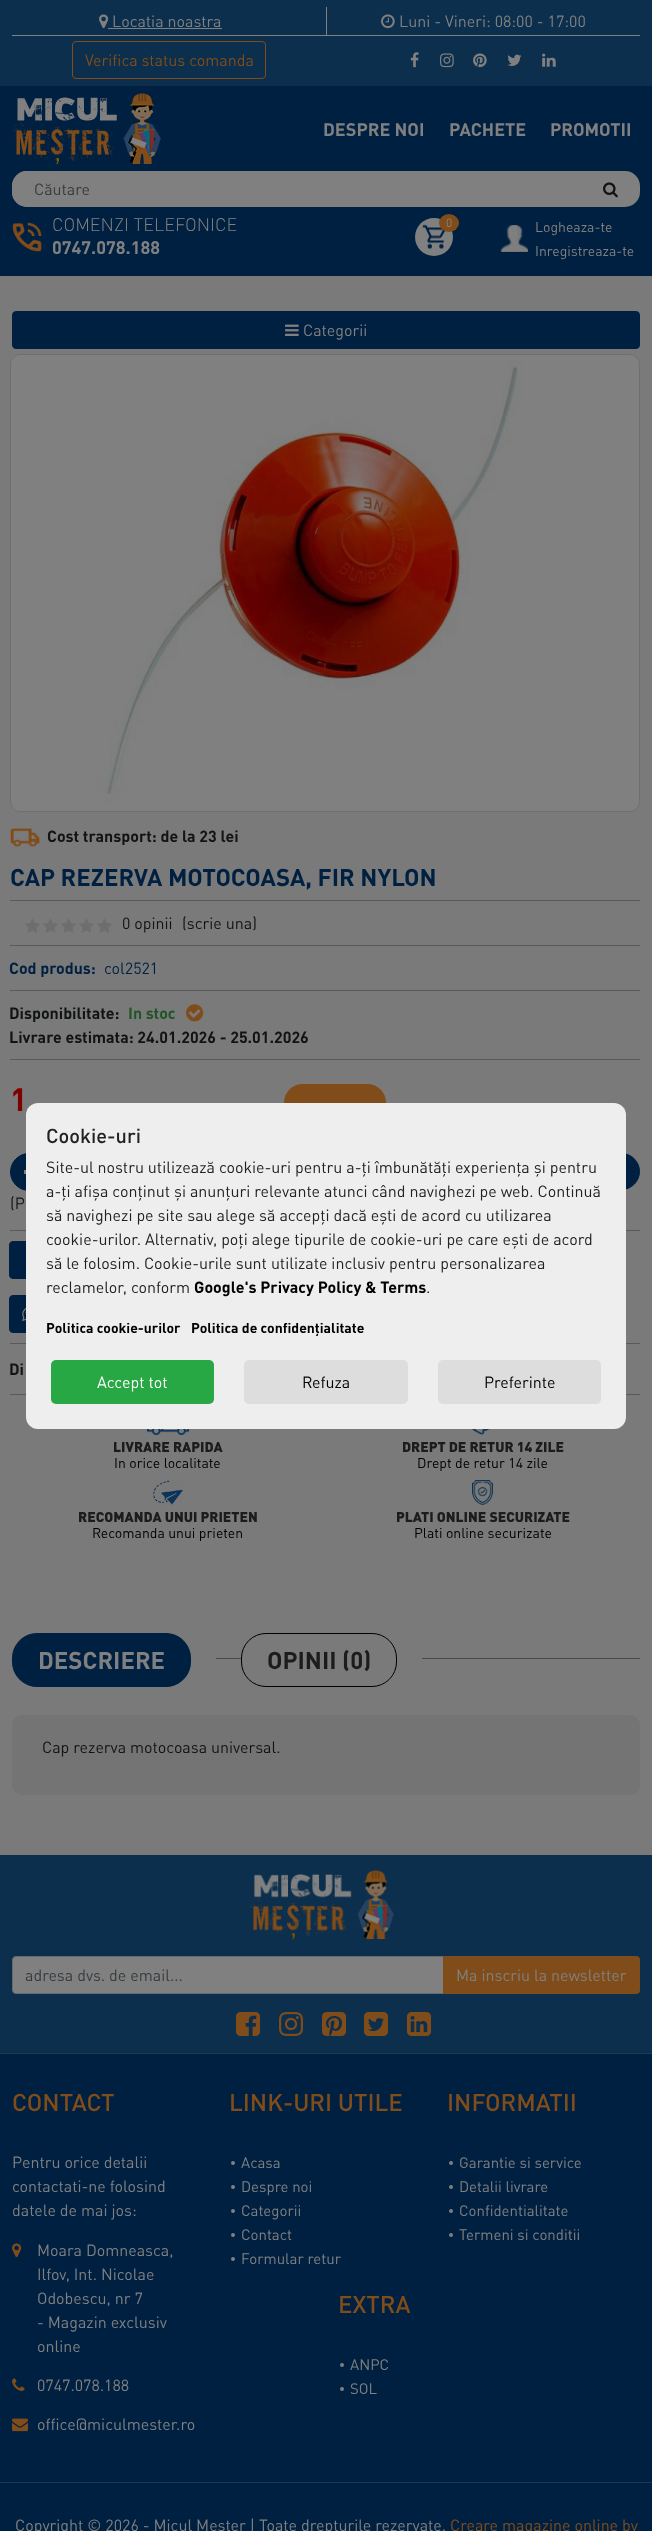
async function draw(canvas) {
  canvas.width = 652;
  canvas.height = 2531;
  const ctx = canvas.getContext('2d');
  ctx.miterLimit = 4;
  ctx.fontKerning = 'normal';
  function label(s, x, y, font, color) {
    ctx.font = font;
    ctx.fillStyle = color;
    ctx.fillText(s, x, y);
  }
  function rect(x, y, w, h, color) {
    ctx.fillStyle = color;
    ctx.fillRect(x, y, w, h);
  }
  function roundedRect(x, y, w, h, r, color) {
    ctx.fillStyle = color;
    ctx.beginPath();
    ctx.roundRect(x, y, w, h, r);
    ctx.fill();
  }
  async function image(src, x, y, w, h) {
    const img = new Image();
    img.src = src;
    await img.decode();
    ctx.drawImage(img, x, y, w, h);
  }

  rect(0, 0, 652, 2531, '#7a7a7a');
  rect(0, 0, 652, 86, '#0b2f4d');
  rect(12, 35, 628, 1, '#808080');
  await image('assets/img1.png', 99, 14, 10, 15);
  label('Locatia noastra', 112, 27, '16px DIN', '#808080');
  rect(108, 28, 114, 1, '#808080');
  rect(326, 7, 1, 29, '#808080');
  await image('assets/img2.png', 381, 14, 14, 15);
  label('Luni - Vineri: 08:00 - 17:00', 399, 27, '16px DIN', '#808080');
  ctx.beginPath();
  ctx.roundRect(72.5, 41.5, 193, 37, 3.5);
  ctx.strokeStyle = '#804d1a';
  ctx.stroke();
  label('Verifica status comanda', 85, 66, '16px DIN', '#804d1a');
  await image('assets/img3.png', 410, 52, 9, 16);
  await image('assets/img4.png', 440, 53, 14, 15);
  await image('assets/img5.png', 473, 53, 14, 15);
  await image('assets/img6.png', 507, 54, 15, 12);
  await image('assets/img7.png', 542, 53, 14, 14);
  rect(0, 86, 652, 190, '#002041');
  await image('assets/img8.png', 12, 93, 149, 73);
  label('DESPRE NOI', 323, 136, 'bold 18px DIN', '#808080');
  label('PACHETE', 449, 136, 'bold 18px DIN', '#808080');
  label('PROMOTII', 550, 136, 'bold 18px DIN', '#808080');
  roundedRect(12, 171, 628, 36, 15, '#808080');
  ctx.beginPath();
  ctx.roundRect(12, 171, 587, 36, [15, 0, 0, 15]);
  ctx.fill();
  label('Căutare', 34, 195, '16px DIN', '#363b3f');
  await image('assets/img9.png', 603, 182, 15, 16);
  await image('assets/img10.png', 12, 222, 30, 30);
  label('COMENZI TELEFONICE', 52, 231, '300 18px DIN', '#808080');
  label('0747.078.188', 52, 254, 'bold 18px DIN', '#808080');
  ctx.beginPath();
  ctx.arc(434, 237, 19, 0, 2 * Math.PI);
  ctx.fill();
  await image('assets/img11.png', 422, 224, 24, 25);
  ctx.fillStyle = '#804d1a';
  ctx.beginPath();
  ctx.ellipse(449, 223, 10, 9, 0, 0, 2 * Math.PI);
  ctx.fill();
  label('0', 446, 227, '12px DIN', '#808080');
  await image('assets/img12.png', 500, 225, 28, 27);
  label('Logheaza-te', 535, 232, '14px DIN', '#808080');
  label('Inregistreaza-te', 535, 256, '14px DIN', '#808080');
  ctx.fillStyle = '#002041';
  ctx.beginPath();
  ctx.roundRect(12.5, 311.5, 627, 37, 3.5);
  ctx.fill();
  ctx.strokeStyle = '#002041';
  ctx.stroke();
  await image('assets/img13.png', 285, 324, 14, 12);
  label('Categorii', 303, 336, '16px DIN', '#808080');
  ctx.beginPath();
  ctx.roundRect(10.5, 354.5, 629, 457, 9.5);
  ctx.strokeStyle = '#6f6f6f';
  ctx.stroke();
  await image('assets/img14.png', 11, 355, 628, 456);
  await image('assets/img15.png', 10, 828, 30, 19);
  label('Cost transport: de la 23 lei', 47, 842, 'bold 16px DIN', '#111315');
  label('CAP REZERVA MOTOCOASA, FIR NYLON', 10, 886, 'bold 24px DIN', '#002041');
  rect(10, 900, 630, 1, '#595959');
  rect(10, 945, 630, 1, '#595959');
  await image('assets/img16.png', 25, 918, 15, 15);
  await image('assets/img16.png', 43, 918, 15, 15);
  await image('assets/img16.png', 61, 918, 15, 15);
  await image('assets/img16.png', 79, 918, 15, 15);
  await image('assets/img16.png', 97, 918, 15, 15);
  label('0 opinii', 122, 929, '16px DIN', '#111315');
  label('(scrie una)', 182, 929, '16px DIN', '#111315');
  rect(10, 990, 630, 1, '#595959');
  label('Cod produs:', 9, 974, 'bold 16px DIN', '#002041');
  label('col2521', 104, 974, '16px DIN', '#002041');
  rect(10, 1059, 630, 1, '#595959');
  label('Disponibilitate:', 9, 1019, 'bold 16px DIN', '#111315');
  label('In stoc', 128, 1019, 'bold 16px DIN', '#205626');
  await image('assets/img17.png', 186, 1004, 18, 18);
  label('Livrare estimata: 24.01.2026 - 25.01.2026', 9, 1043, 'bold 16px DIN', '#111315');
  label('1', 10, 1111, 'bold 32px DIN', '#800000');
  roundedRect(284, 1084, 102, 37, 18.5, '#804d1a');
  ctx.fillStyle = '#002041';
  ctx.beginPath();
  ctx.roundRect(10.5, 1153.5, 39, 37, [18.5, 2.5, 2.5, 18.5]);
  ctx.fill();
  ctx.strokeStyle = '#002041';
  ctx.stroke();
  rect(24, 1170, 2, 4, '#808080');
  ctx.fillStyle = '#002041';
  ctx.beginPath();
  ctx.roundRect(337.5, 1153.5, 302, 36, 18);
  ctx.fill();
  ctx.stroke();
  label('(P', 10, 1209, '16px DIN', '#111315');
  rect(10, 1230, 630, 1, '#595959');
  rect(10, 1343, 630, 1, '#595959');
  ctx.fillStyle = '#002041';
  ctx.beginPath();
  ctx.roundRect(9.5, 1241.5, 372, 37, 3.5);
  ctx.fill();
  ctx.stroke();
  ctx.beginPath();
  ctx.roundRect(9.5, 1295.5, 226, 37, 3.5);
  ctx.fill();
  ctx.stroke();
  await image('assets/img18.png', 22, 1308, 4, 14);
  rect(10, 1394, 630, 1, '#595959');
  label('Di', 9, 1375, 'bold 16px DIN', '#111315');
  await image('assets/img19.png', 147, 1429, 42, 6);
  label('LIVRARE RAPIDA', 113, 1452, '900 14px DIN', '#1c1c1c');
  label('In orice localitate', 114, 1468, '14px DIN', '#000');
  await image('assets/img20.png', 472, 1429, 19, 6);
  label('DREPT DE RETUR 14 ZILE', 402, 1452, '900 14px DIN', '#1c1c1c');
  label('Drept de retur 14 zile', 417, 1468, '14px DIN', '#000');
  await image('assets/img21.png', 153, 1480, 30, 25);
  label('RECOMANDA UNUI PRIETEN', 78, 1522, '900 14px DIN', '#1c1c1c');
  label('Recomanda unui prieten', 92, 1538, '14px DIN', '#000');
  await image('assets/img22.png', 472, 1480, 21, 25);
  label('PLATI ONLINE SECURIZATE', 396, 1522, '900 14px DIN', '#1c1c1c');
  label('Plati online securizate', 414, 1538, '14px DIN', '#000');
  ctx.fillStyle = '#002041';
  ctx.beginPath();
  ctx.roundRect(12.5, 1633.5, 178, 53, 24.5);
  ctx.fill();
  ctx.stroke();
  label('DESCRIERE', 38, 1669, 'bold 24px DIN', '#808080');
  rect(216, 1658, 424, 1, '#494949');
  rect(241, 1658, 181, 1, '#7a7a7a');
  ctx.beginPath();
  ctx.roundRect(241.5, 1633.5, 155, 53, 24.5);
  ctx.strokeStyle = '#000';
  ctx.stroke();
  label('OPINII (0)', 267, 1669, 'bold 24px DIN', '#1c1c1c');
  roundedRect(12, 1715, 628, 80, 10, '#747474');
  label('Cap rezerva motocoasa universal.', 42, 1753, '16px DIN', '#111315');
  roundedRect(26, 1103, 600, 326, 12, '#eee');
  label('Cookie-uri', 46, 1143, '500 20px DIN', '#222');
  label('Site-ul nostru utilizează cookie-uri pentru a-ți îmbunătăți experiența și pentru', 46, 1173, '16px DIN', '#222');
  label('a-ți afișa conținut și anunțuri relevante atunci când navighezi pe web. Continuă', 46, 1197, '16px DIN', '#222');
  label('să navighezi pe site sau alege să accepți dacă ești de acord cu utilizarea', 46, 1221, '16px DIN', '#222');
  label('cookie-urilor. Alternativ, poți alege tipurile de cookie-uri pe care ești de acord', 46, 1245, '16px DIN', '#222');
  label('să le folosim. Cookie-urile sunt utilizate inclusiv pentru personalizarea', 46, 1269, '16px DIN', '#222');
  label('reclamelor, conform', 46, 1293, '16px DIN', '#222');
  label('Google\'s Privacy Policy & Terms', 194, 1293, 'bold 16px DIN', '#000');
  label('.', 426, 1293, '16px DIN', '#222');
  label('Politica cookie-urilor', 46, 1333, 'bold 14px DIN', '#000');
  label('Politica de confidențialitate', 191, 1333, 'bold 14px DIN', '#000');
  roundedRect(51, 1360, 163, 44, 5, '#28a745');
  label('Accept tot', 97, 1388, '16px DIN', '#fff');
  roundedRect(244, 1360, 164, 44, 5, '#ddd');
  label('Refuza', 302, 1388, '16px DIN', '#000');
  roundedRect(438, 1360, 163, 44, 5, '#ddd');
  label('Preferinte', 484, 1388, '16px DIN', '#000');
  rect(0, 1855, 652, 198, '#0b2f4d');
  await image('assets/img23.png', 249, 1870, 145, 71);
  ctx.fillStyle = '#808080';
  ctx.beginPath();
  ctx.roundRect(12.5, 1956.5, 431, 37, [3.5, 0, 0, 3.5]);
  ctx.fill();
  ctx.strokeStyle = '#676a6d';
  ctx.stroke();
  label('adresa dvs. de email...', 25, 1981, '16px DIN', '#363b3f');
  ctx.fillStyle = '#804d1a';
  ctx.beginPath();
  ctx.roundRect(443, 1956, 197, 38, [0, 4, 4, 0]);
  ctx.fill();
  label('Ma inscriu la newsletter', 456, 1981, '16px DIN', '#808080');
  await image('assets/img24.png', 236, 2012, 24, 24);
  await image('assets/img25.png', 279, 2012, 24, 24);
  await image('assets/img26.png', 322, 2012, 24, 24);
  await image('assets/img27.png', 364, 2012, 24, 24);
  await image('assets/img28.png', 407, 2012, 24, 24);
  rect(0, 2054, 652, 428, '#002041');
  rect(0, 2053, 652, 1, '#1a3d53');
  label('CONTACT', 12, 2111, '500 24px DIN', '#804d1a');
  label('Pentru orice detalii', 12, 2168, '16px DIN', '#808080');
  label('contactati-ne folosind', 12, 2192, '16px DIN', '#808080');
  label('datele de mai jos:', 12, 2216, '16px DIN', '#808080');
  await image('assets/img29.png', 12, 2243, 10, 15);
  label('Moara Domneasca,', 37, 2256, '16px DIN', '#808080');
  label('Ilfov, Int. Nicolae', 37, 2280, '16px DIN', '#808080');
  label('Odobescu, nr 7', 37, 2304, '16px DIN', '#808080');
  label('- Magazin exclusiv', 37, 2328, '16px DIN', '#808080');
  label('online', 37, 2352, '16px DIN', '#808080');
  await image('assets/img30.png', 12, 2378, 13, 13);
  label('0747.078.188', 37, 2391, '16px DIN', '#808080');
  await image('assets/img31.png', 12, 2418, 16, 14);
  label('office@miculmester.ro', 37, 2430, '16px DIN', '#808080');
  label('LINK-URI UTILE', 229, 2111, '500 24px DIN', '#804d1a');
  ctx.fillStyle = '#808080';
  ctx.beginPath();
  ctx.arc(233, 2163, 2, 0, 2 * Math.PI);
  ctx.fill();
  label('Acasa', 241, 2168, '15px DIN', '#808080');
  ctx.beginPath();
  ctx.arc(233, 2187, 2, 0, 2 * Math.PI);
  ctx.fill();
  label('Despre noi', 241, 2192, '15px DIN', '#808080');
  ctx.beginPath();
  ctx.arc(233, 2211, 2, 0, 2 * Math.PI);
  ctx.fill();
  label('Categorii', 241, 2216, '15px DIN', '#808080');
  ctx.beginPath();
  ctx.arc(233, 2235, 2, 0, 2 * Math.PI);
  ctx.fill();
  label('Contact', 241, 2240, '15px DIN', '#808080');
  ctx.beginPath();
  ctx.arc(233, 2259, 2, 0, 2 * Math.PI);
  ctx.fill();
  label('Formular retur', 241, 2264, '15px DIN', '#808080');
  label('INFORMATII', 447, 2111, '500 24px DIN', '#804d1a');
  ctx.fillStyle = '#808080';
  ctx.beginPath();
  ctx.arc(451, 2163, 2, 0, 2 * Math.PI);
  ctx.fill();
  label('Garantie si service', 459, 2168, '15px DIN', '#808080');
  ctx.beginPath();
  ctx.arc(451, 2187, 2, 0, 2 * Math.PI);
  ctx.fill();
  label('Detalii livrare', 459, 2192, '15px DIN', '#808080');
  ctx.beginPath();
  ctx.arc(451, 2211, 2, 0, 2 * Math.PI);
  ctx.fill();
  label('Confidentialitate', 459, 2216, '15px DIN', '#808080');
  ctx.beginPath();
  ctx.arc(451, 2235, 2, 0, 2 * Math.PI);
  ctx.fill();
  label('Termeni si conditii', 459, 2240, '15px DIN', '#808080');
  label('EXTRA', 338, 2313, '500 24px DIN', '#804d1a');
  ctx.fillStyle = '#808080';
  ctx.beginPath();
  ctx.arc(342, 2365, 2, 0, 2 * Math.PI);
  ctx.fill();
  label('ANPC', 350, 2370, '15px DIN', '#808080');
  ctx.beginPath();
  ctx.arc(342, 2389, 2, 0, 2 * Math.PI);
  ctx.fill();
  label('SOL', 350, 2394, '15px DIN', '#808080');
  rect(0, 2483, 652, 48, '#002041');
  rect(0, 2482, 652, 1, '#1a3d53');
  label('Copyright © 2026 - Micul Mester | Toate drepturile rezervate.', 15, 2531, '16px DIN', '#808080');
  label('Creare magazine online by', 450, 2531, '16px DIN', '#804d1a');
}

draw(document.querySelector('canvas'));
